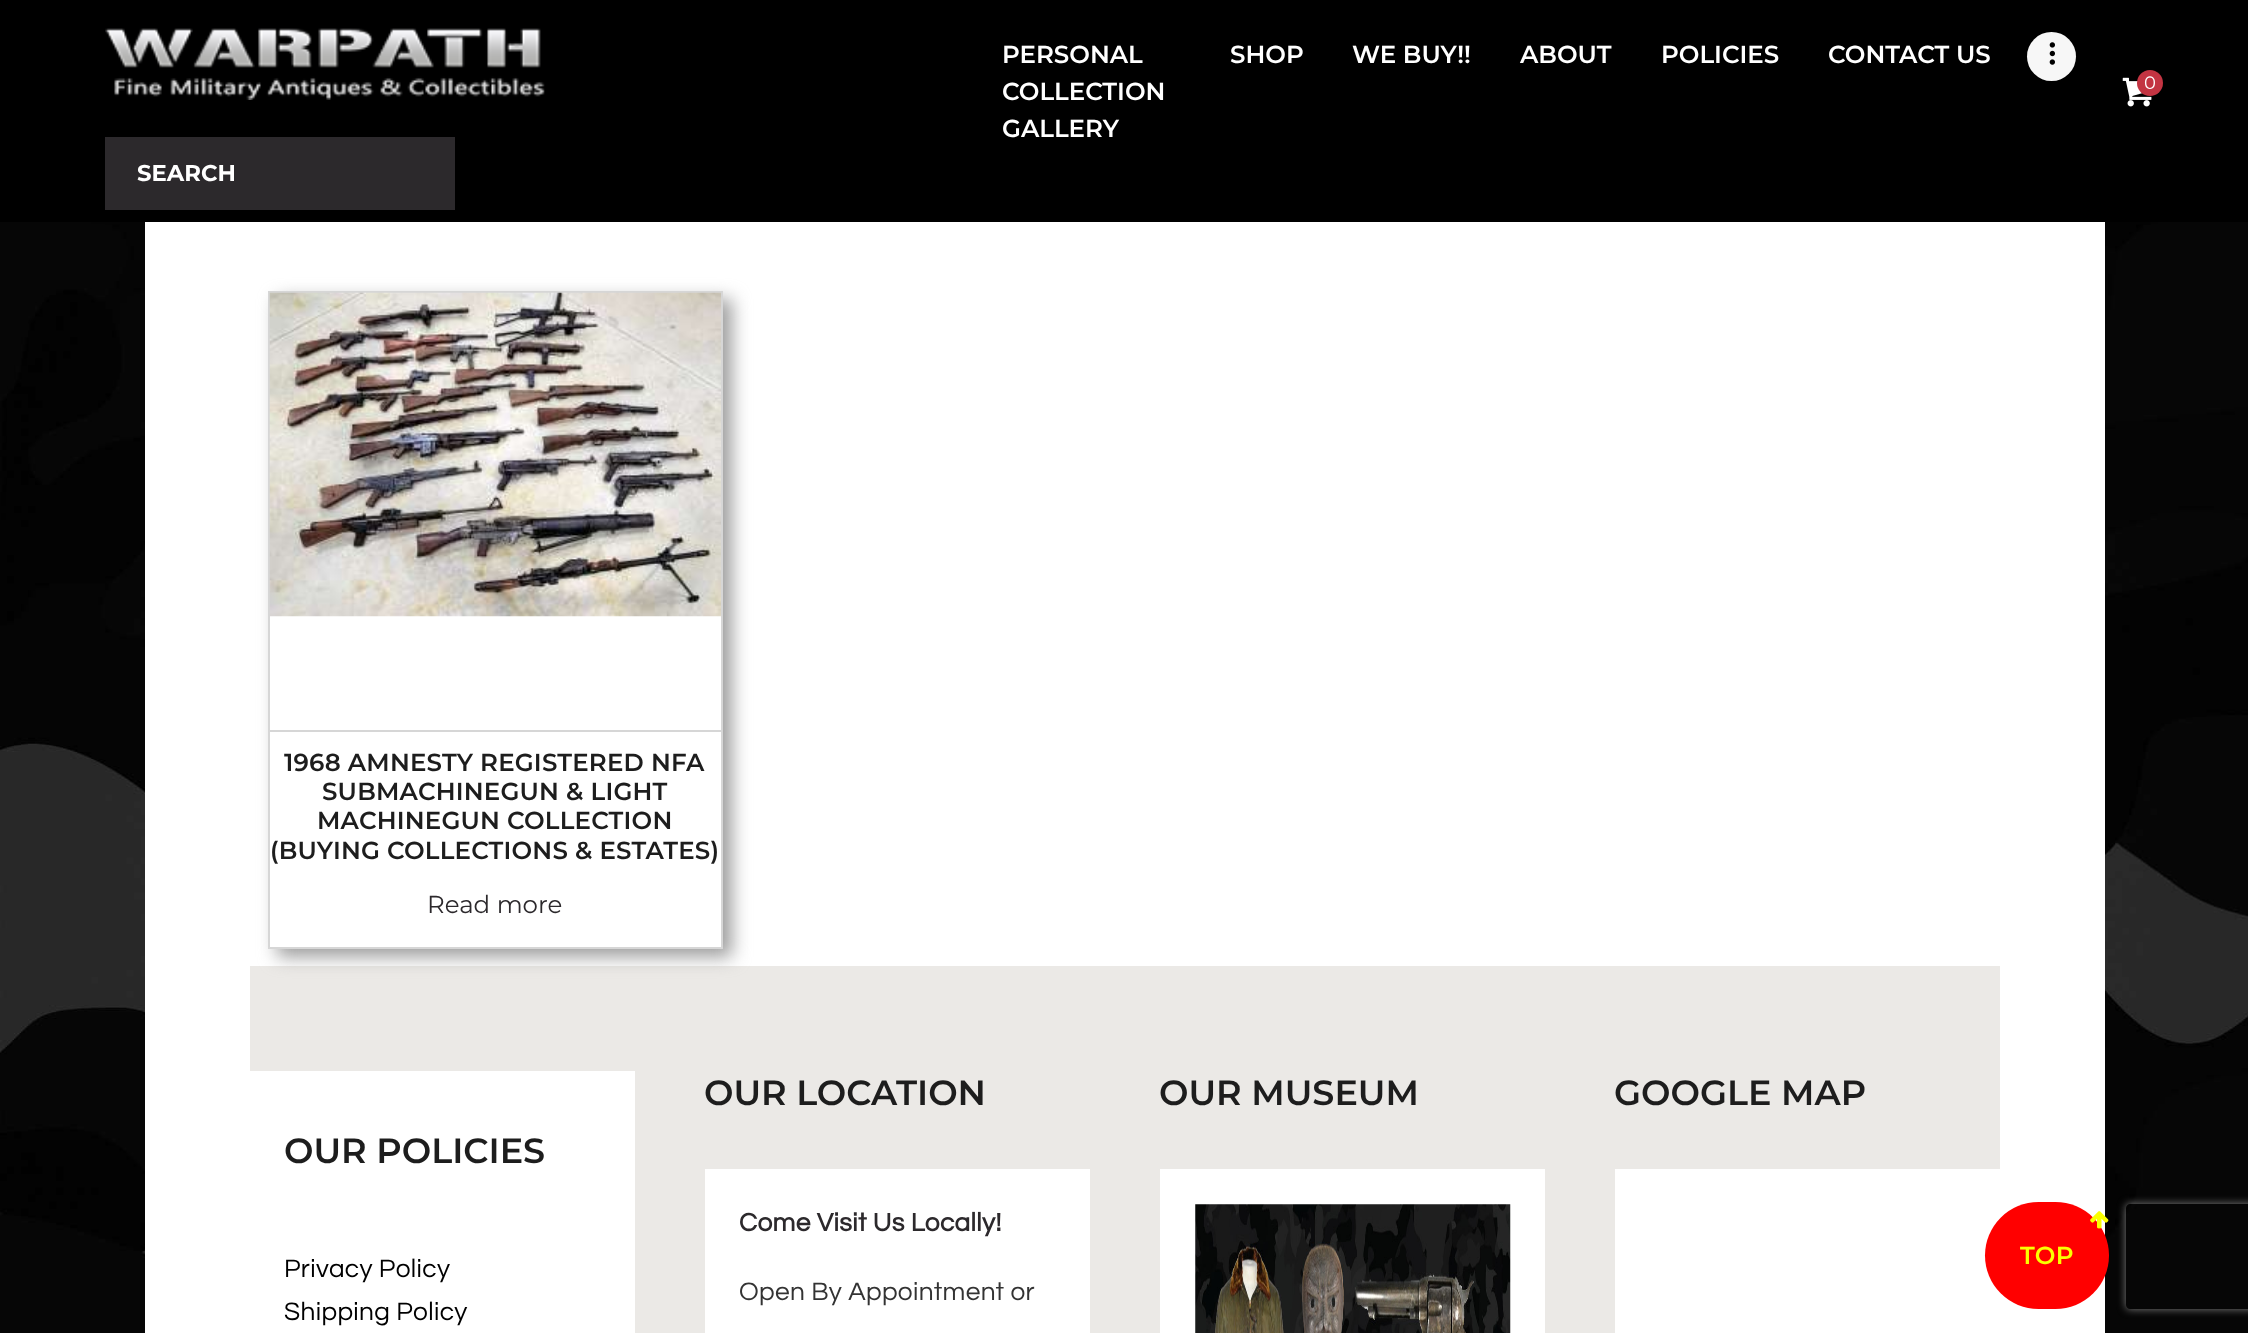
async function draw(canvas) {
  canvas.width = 2248;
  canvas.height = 1333;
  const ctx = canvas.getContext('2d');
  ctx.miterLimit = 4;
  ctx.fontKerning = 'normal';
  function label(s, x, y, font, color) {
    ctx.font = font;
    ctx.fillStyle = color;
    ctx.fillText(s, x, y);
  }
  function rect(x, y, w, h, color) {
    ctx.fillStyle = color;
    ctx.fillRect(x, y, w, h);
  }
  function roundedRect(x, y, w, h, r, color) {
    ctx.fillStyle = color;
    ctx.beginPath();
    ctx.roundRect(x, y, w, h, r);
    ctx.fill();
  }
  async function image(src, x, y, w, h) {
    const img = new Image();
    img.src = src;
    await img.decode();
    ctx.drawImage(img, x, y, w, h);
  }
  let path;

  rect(0, 0, 2248, 1333, '#fff');
  await image('assets/img1.png', 0, 222, 2248, 1111);
  rect(145, 222, 1960, 1111, '#fff');
  rect(0, 0, 2248, 222, '#000');
  label('PERSONAL', 1002, 63, '600 24.5px Montserrat', '#fff');
  label('COLLECTION', 1002, 100, '600 24.5px Montserrat', '#fff');
  label('GALLERY', 1002, 137, '600 24.5px Montserrat', '#fff');
  label('SHOP', 1230, 63, '600 24.5px Montserrat', '#fff');
  label('WE BUY!!', 1352, 63, '600 24.5px Montserrat', '#fff');
  label('ABOUT', 1520, 63, '600 24.5px Montserrat', '#fff');
  label('POLICIES', 1661, 63, '600 24.5px Montserrat', '#fff');
  label('CONTACT US', 1828, 63, '600 24.5px Montserrat', '#fff');
  ctx.fillStyle = '#f7f7f7';
  ctx.beginPath();
  ctx.arc(2051.5, 56.5, 24.5, 0, 2 * Math.PI);
  ctx.fill();
  await image('assets/img2.png', 2049, 42, 6, 23);
  await image('assets/img3.png', 2122, 77, 30, 30);
  ctx.fillStyle = '#c33442';
  ctx.beginPath();
  ctx.arc(2150, 83, 13, 0, 2 * Math.PI);
  ctx.fill();
  label('0', 2144, 89, '18px Montserrat', '#fff');
  await image('assets/img4.png', 105, 28, 440, 72);
  rect(105, 137, 350, 73, '#2c292c');
  label('SEARCH', 137, 181, 'bold 22.75px Montserrat', '#fff');
  rect(250, 966, 1750, 367, '#ebe9e6');
  ctx.save();
  path = new Path2D('M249 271H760V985H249ZM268 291H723V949H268Z');
  ctx.clip(path, 'evenodd');
  ctx.fillStyle = '#9d9d9d';
  ctx.filter = 'blur(9px)';
  ctx.beginPath();
  ctx.rect(277, 299, 455, 658);
  ctx.fill();
  ctx.filter = 'none';
  ctx.restore();
  ctx.strokeStyle = '#80808052';
  ctx.lineWidth = 2;
  ctx.strokeRect(269, 292, 453, 656);
  await image('assets/img5.png', 269, 292, 452, 325);
  rect(270, 730, 451, 2, '#d6d6d6');
  ctx.letterSpacing = '0.2px';
  label('1968 AMNESTY REGISTERED NFA', 284, 771, '600 24.5px Montserrat', '#1d1d1d');
  label('SUBMACHINEGUN & LIGHT', 322, 800, '600 24.5px Montserrat', '#1d1d1d');
  label('MACHINEGUN COLLECTION', 317, 829, '600 24.5px Montserrat', '#1d1d1d');
  label('(BUYING COLLECTIONS & ESTATES)', 270, 859, '600 24.5px Montserrat', '#1d1d1d');
  ctx.letterSpacing = '0px';
  label('Read more', 427, 913, '24.5px Montserrat', '#2c292c');
  rect(705, 1169, 385, 164, '#fff');
  label('OUR LOCATION', 704, 1105, '600 35px Montserrat', '#1d1d1d');
  ctx.letterSpacing = '0.35px';
  label('Come Visit Us Locally!', 739, 1231, 'bold 26.25px Questrial', '#2c292c');
  label('Open By Appointment or', 739, 1300, '26.25px Questrial', '#333');
  rect(1160, 1169, 385, 164, '#fff');
  ctx.letterSpacing = '0px';
  label('OUR MUSEUM', 1159, 1105, '600 35px Montserrat', '#1d1d1d');
  await image('assets/img6.png', 1195, 1204, 316, 129);
  rect(1615, 1169, 385, 164, '#fff');
  label('GOOGLE MAP', 1614, 1105, '600 35px Montserrat', '#1d1d1d');
  rect(250, 1071, 385, 262, '#fff');
  label('OUR POLICIES', 284, 1163, '600 35px Montserrat', '#1d1d1d');
  ctx.letterSpacing = '0.35px';
  label('Privacy Policy', 284, 1277, '26.25px Questrial', '#000');
  label('Shipping Policy', 284, 1320, '26.25px Questrial', '#000');
  ctx.save();
  path = new Path2D('M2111 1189H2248V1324H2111ZM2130 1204H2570C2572 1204 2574 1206 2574 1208V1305C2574 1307 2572 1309 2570 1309H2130C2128 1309 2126 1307 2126 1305V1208C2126 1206 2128 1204 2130 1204Z');
  ctx.clip(path, 'evenodd');
  ctx.fillStyle = '#808080';
  ctx.filter = 'blur(4.5px)';
  ctx.beginPath();
  ctx.roundRect(2126, 1204, 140, 105, 4);
  ctx.fill();
  ctx.filter = 'none';
  ctx.restore();
  roundedRect(1985, 1202, 124, 107, 53.5, '#f00');
  await image('assets/img7.png', 2090, 1211, 19, 18);
  label('TOP', 2020, 1264, '600 24.5px Montserrat', '#faff00');
}

draw(document.querySelector('canvas'));
